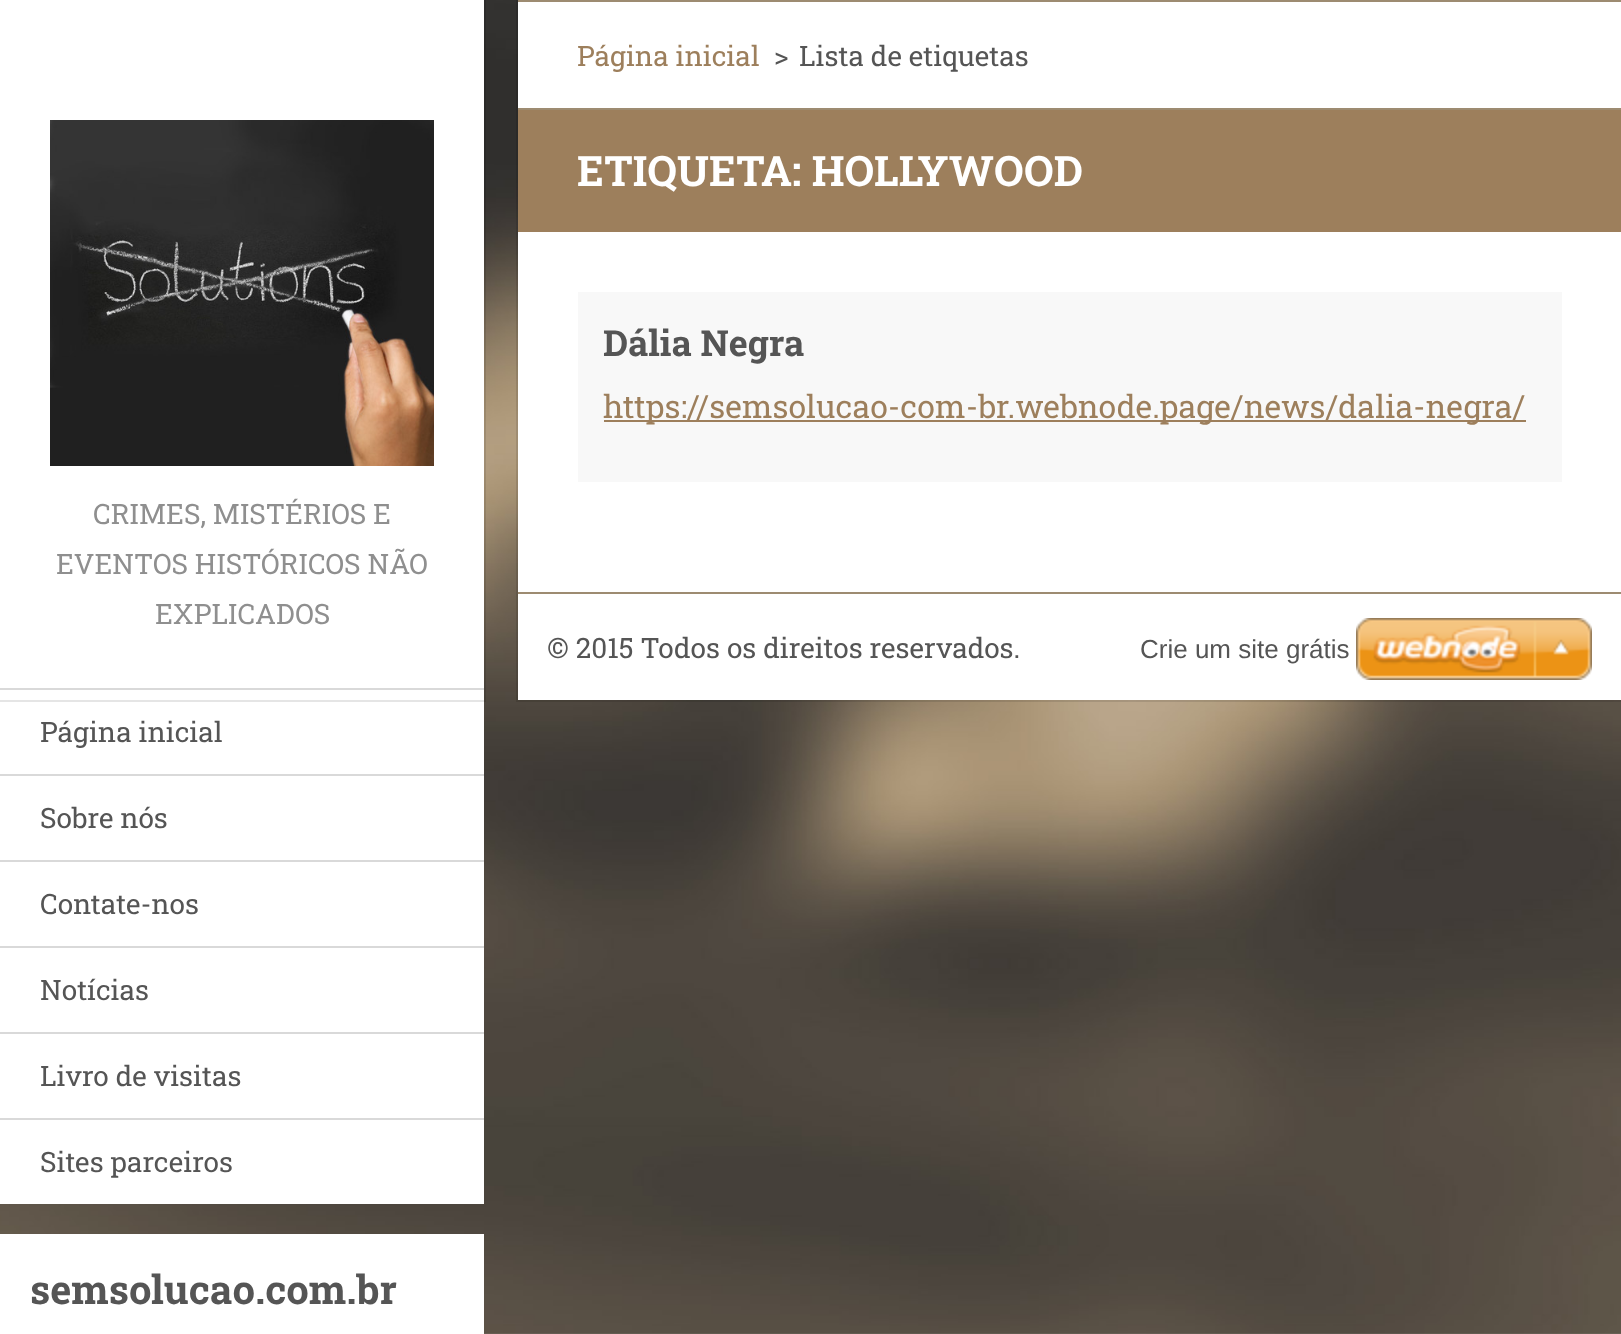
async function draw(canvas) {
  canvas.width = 1621;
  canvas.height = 1334;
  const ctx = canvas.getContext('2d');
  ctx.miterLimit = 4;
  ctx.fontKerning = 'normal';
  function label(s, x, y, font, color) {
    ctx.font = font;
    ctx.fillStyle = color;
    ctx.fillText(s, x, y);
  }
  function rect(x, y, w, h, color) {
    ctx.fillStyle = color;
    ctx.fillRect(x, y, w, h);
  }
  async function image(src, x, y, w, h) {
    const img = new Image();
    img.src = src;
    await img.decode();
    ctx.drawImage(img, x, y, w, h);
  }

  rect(0, 0, 1621, 1334, '#fff');
  await image('assets/img1.png', 0, 0, 1621, 1334);
  rect(518, 2, 1103, 106, '#fff');
  rect(518, 0, 1103, 2, '#9d8b71');
  rect(518, 108, 1103, 2, '#9d8b71');
  rect(518, 110, 1103, 122, '#9d7f5c');
  rect(518, 232, 1103, 300, '#fff');
  ctx.strokeStyle = '#0000001a';
  ctx.lineWidth = 2;
  ctx.strokeRect(517, -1, 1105, 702);
  label('Página inicial', 577, 66, '28px Roboto Slab', '#9d7f5c');
  label('>', 774, 66, '28px Roboto Slab', '#555');
  label('Lista de etiquetas', 799, 66, '28px Roboto Slab', '#555');
  label('ETIQUETA: HOLLYWOOD', 577, 186, 'bold 42px Roboto Slab', '#fff');
  rect(578, 292, 984, 190, '#f8f8f8');
  label('Dália Negra', 603, 356, 'bold 36px Roboto Slab', '#555');
  rect(604, 420, 922, 2, '#9d7f5c');
  label('https://semsolucao-com-br.webnode.page/news/dalia-negra/', 603, 418, '32px Roboto Slab', '#9d7f5c');
  rect(518, 532, 1103, 60, '#fff');
  rect(518, 594, 1103, 106, '#fff');
  rect(518, 592, 1103, 2, '#9d8b71');
  label('© 2015 Todos os direitos reservados.', 547, 658, '28px Roboto Slab', '#555');
  rect(0, 0, 484, 688, '#fff');
  rect(0, 690, 484, 514, '#fff');
  ctx.strokeRect(-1, -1, 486, 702);
  await image('assets/img2.png', 50, 120, 384, 346);
  label('CRIMES, MISTÉRIOS E', 93, 524, '28px Roboto Slab', '#8f8f8f');
  label('EVENTOS HISTÓRICOS NÃO', 56, 574, '28px Roboto Slab', '#8f8f8f');
  label('EXPLICADOS', 155, 624, '28px Roboto Slab', '#8f8f8f');
  rect(0, 688, 484, 2, '#d9d9d9');
  label('Página inicial', 40, 742, '28px Roboto Slab', '#555');
  rect(0, 774, 484, 2, '#d9d9d9');
  label('Sobre nós', 40, 828, '28px Roboto Slab', '#555');
  rect(0, 860, 484, 2, '#d9d9d9');
  label('Contate-nos', 40, 914, '28px Roboto Slab', '#555');
  rect(0, 946, 484, 2, '#d9d9d9');
  label('Notícias', 40, 1000, '28px Roboto Slab', '#555');
  rect(0, 1032, 484, 2, '#d9d9d9');
  label('Livro de visitas', 40, 1086, '28px Roboto Slab', '#555');
  rect(0, 1118, 484, 2, '#d9d9d9');
  label('Sites parceiros', 40, 1172, '28px Roboto Slab', '#555');
  rect(0, 1234, 484, 100, '#fff');
  label('semsolucao.com.br', 30, 1304, 'bold 40px Roboto Slab', '#555');
  label('Crie um site grátis', 1140, 658, '26px Liberation Sans', '#555');
  await image('assets/img3.png', 1356, 618, 236, 62);
}

draw(document.querySelector('canvas'));
